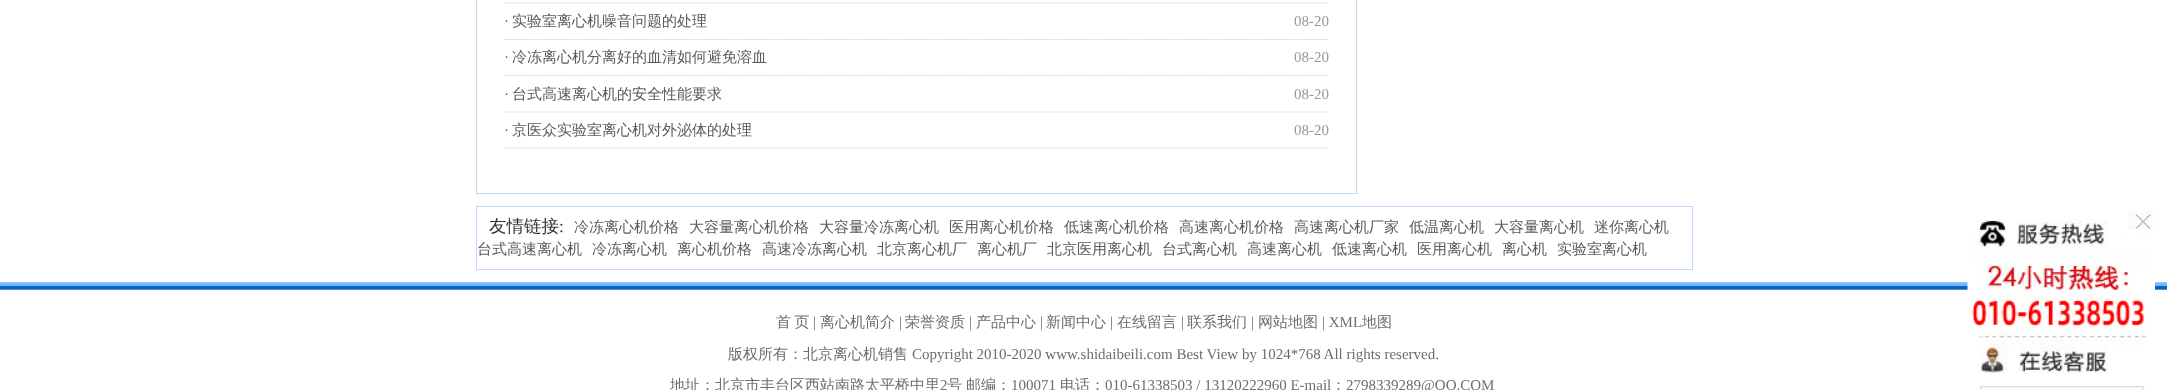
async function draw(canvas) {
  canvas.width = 2167;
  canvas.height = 390;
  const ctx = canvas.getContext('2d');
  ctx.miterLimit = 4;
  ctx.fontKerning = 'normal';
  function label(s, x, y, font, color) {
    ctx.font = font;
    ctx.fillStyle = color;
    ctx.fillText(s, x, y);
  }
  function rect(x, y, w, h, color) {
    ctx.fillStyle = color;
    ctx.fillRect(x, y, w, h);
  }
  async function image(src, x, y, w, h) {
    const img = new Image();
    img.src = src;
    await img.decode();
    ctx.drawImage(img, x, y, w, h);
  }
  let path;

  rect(0, 0, 2167, 390, '#fff');
  rect(1356, 0, 1, 194, '#c0dbe8');
  rect(476, 0, 1, 161, '#c0dbe8');
  path = new Path2D('M504 3H1329');
  ctx.strokeStyle = '#ccc';
  ctx.lineWidth = 1.2;
  ctx.setLineDash([1.25, 1.25]);
  ctx.stroke(path);
  path = new Path2D('M504 39.5H1329');
  ctx.stroke(path);
  label('·', 504, 26, '15px Liberation Serif', '#5a5a5a');
  label('实验室离心机噪音问题的处理', 512, 26, '500 15px WenQuanYi Zen Hei', '#5a5a5a');
  label('08-20', 1294, 26, '15px Liberation Serif', '#999');
  path = new Path2D('M504 75.5H1329');
  ctx.stroke(path);
  label('·', 504, 62, '15px Liberation Serif', '#5a5a5a');
  label('冷冻离心机分离好的血清如何避免溶血', 512, 62, '500 15px WenQuanYi Zen Hei', '#5a5a5a');
  label('08-20', 1294, 62, '15px Liberation Serif', '#999');
  path = new Path2D('M504 112H1329');
  ctx.stroke(path);
  label('·', 504, 99, '15px Liberation Serif', '#5a5a5a');
  label('台式高速离心机的安全性能要求', 512, 99, '500 15px WenQuanYi Zen Hei', '#5a5a5a');
  label('08-20', 1294, 99, '15px Liberation Serif', '#999');
  path = new Path2D('M504 148H1329');
  ctx.stroke(path);
  label('·', 504, 135, '15px Liberation Serif', '#5a5a5a');
  label('京医众实验室离心机对外泌体的处理', 512, 135, '500 15px WenQuanYi Zen Hei', '#5a5a5a');
  label('08-20', 1294, 135, '15px Liberation Serif', '#999');
  rect(476, 193, 882, 1, '#c0dbe8');
  rect(476, 161, 1, 33, '#c0dbe8');
  ctx.strokeStyle = '#c5dafb';
  ctx.lineWidth = 1;
  ctx.setLineDash([]);
  ctx.strokeRect(476.5, 206.5, 1216, 63);
  label('友情链接', 489, 232, '500 17.5px WenQuanYi Zen Hei', '#333');
  label(':', 559, 232, '17.5px Liberation Serif', '#333');
  label('冷冻离心机价格', 574, 232, '500 15px WenQuanYi Zen Hei', '#5a5a5a');
  label('大容量离心机价格', 689, 232, '500 15px WenQuanYi Zen Hei', '#5a5a5a');
  label('大容量冷冻离心机', 819, 232, '500 15px WenQuanYi Zen Hei', '#5a5a5a');
  label('医用离心机价格', 949, 232, '500 15px WenQuanYi Zen Hei', '#5a5a5a');
  label('低速离心机价格', 1064, 232, '500 15px WenQuanYi Zen Hei', '#5a5a5a');
  label('高速离心机价格', 1179, 232, '500 15px WenQuanYi Zen Hei', '#5a5a5a');
  label('高速离心机厂家', 1294, 232, '500 15px WenQuanYi Zen Hei', '#5a5a5a');
  label('低温离心机', 1409, 232, '500 15px WenQuanYi Zen Hei', '#5a5a5a');
  label('大容量离心机', 1494, 232, '500 15px WenQuanYi Zen Hei', '#5a5a5a');
  label('迷你离心机', 1594, 232, '500 15px WenQuanYi Zen Hei', '#5a5a5a');
  label('台式高速离心机', 477, 254, '500 15px WenQuanYi Zen Hei', '#5a5a5a');
  label('冷冻离心机', 592, 254, '500 15px WenQuanYi Zen Hei', '#5a5a5a');
  label('离心机价格', 677, 254, '500 15px WenQuanYi Zen Hei', '#5a5a5a');
  label('高速冷冻离心机', 762, 254, '500 15px WenQuanYi Zen Hei', '#5a5a5a');
  label('北京离心机厂', 877, 254, '500 15px WenQuanYi Zen Hei', '#5a5a5a');
  label('离心机厂', 977, 254, '500 15px WenQuanYi Zen Hei', '#5a5a5a');
  label('北京医用离心机', 1047, 254, '500 15px WenQuanYi Zen Hei', '#5a5a5a');
  label('台式离心机', 1162, 254, '500 15px WenQuanYi Zen Hei', '#5a5a5a');
  label('高速离心机', 1247, 254, '500 15px WenQuanYi Zen Hei', '#5a5a5a');
  label('低速离心机', 1332, 254, '500 15px WenQuanYi Zen Hei', '#5a5a5a');
  label('医用离心机', 1417, 254, '500 15px WenQuanYi Zen Hei', '#5a5a5a');
  label('离心机', 1502, 254, '500 15px WenQuanYi Zen Hei', '#5a5a5a');
  label('实验室离心机', 1557, 254, '500 15px WenQuanYi Zen Hei', '#5a5a5a');
  await image('assets/img1.png', 0, 282, 2167, 8);
  ctx.wordSpacing = '-1px';
  label('首 页', 776, 327, '500 15px WenQuanYi Zen Hei', '#6f6c6c');
  ctx.wordSpacing = '0px';
  label('|', 813, 327, '15px Liberation Serif', '#6f6c6c');
  label('离心机简介', 820, 327, '500 15px WenQuanYi Zen Hei', '#6f6c6c');
  label('|', 899, 327, '15px Liberation Serif', '#6f6c6c');
  label('荣誉资质', 905, 327, '500 15px WenQuanYi Zen Hei', '#6f6c6c');
  label('|', 969, 327, '15px Liberation Serif', '#6f6c6c');
  label('产品中心', 976, 327, '500 15px WenQuanYi Zen Hei', '#6f6c6c');
  label('|', 1040, 327, '15px Liberation Serif', '#6f6c6c');
  label('新闻中心', 1046, 327, '500 15px WenQuanYi Zen Hei', '#6f6c6c');
  label('|', 1110, 327, '15px Liberation Serif', '#6f6c6c');
  label('在线留言', 1117, 327, '500 15px WenQuanYi Zen Hei', '#6f6c6c');
  label('|', 1181, 327, '15px Liberation Serif', '#6f6c6c');
  label('联系我们', 1187, 327, '500 15px WenQuanYi Zen Hei', '#6f6c6c');
  label('|', 1251, 327, '15px Liberation Serif', '#6f6c6c');
  label('网站地图', 1258, 327, '500 15px WenQuanYi Zen Hei', '#6f6c6c');
  label('| XML', 1322, 327, '15px Liberation Serif', '#6f6c6c');
  label('地图', 1362, 327, '500 15px WenQuanYi Zen Hei', '#6f6c6c');
  label('版权所有：北京离心机销售', 728, 359, '500 15px WenQuanYi Zen Hei', '#6f6c6c');
  label('Copyright 2010-2020 www.shidaibeili.com Best View by 1024*768 All rights reserved.', 912, 359, '15px Liberation Serif', '#6f6c6c');
  label('地址：北京市丰台区西站南路太平桥中里', 670, 390, '500 15px WenQuanYi Zen Hei', '#6f6c6c');
  label('2', 940, 390, '15px Liberation Serif', '#6f6c6c');
  label('号', 947, 390, '500 15px WenQuanYi Zen Hei', '#6f6c6c');
  label('邮编：', 966, 390, '500 15px WenQuanYi Zen Hei', '#6f6c6c');
  label('100071', 1011, 390, '15px Liberation Serif', '#6f6c6c');
  label('电话：', 1060, 390, '500 15px WenQuanYi Zen Hei', '#6f6c6c');
  label('010-61338503 / 13120222960 E-mail', 1105, 390, '15px Liberation Serif', '#6f6c6c');
  label('：', 1331, 390, '500 15px WenQuanYi Zen Hei', '#6f6c6c');
  label('2798339289@QQ.COM', 1346, 390, '15px Liberation Serif', '#6f6c6c');
  rect(1968, 282, 187, 8, '#fff');
  await image('assets/img2.png', 1967, 210, 186, 164);
  await image('assets/img3.png', 1978, 385, 169, 5);
}

draw(document.querySelector('canvas'));
